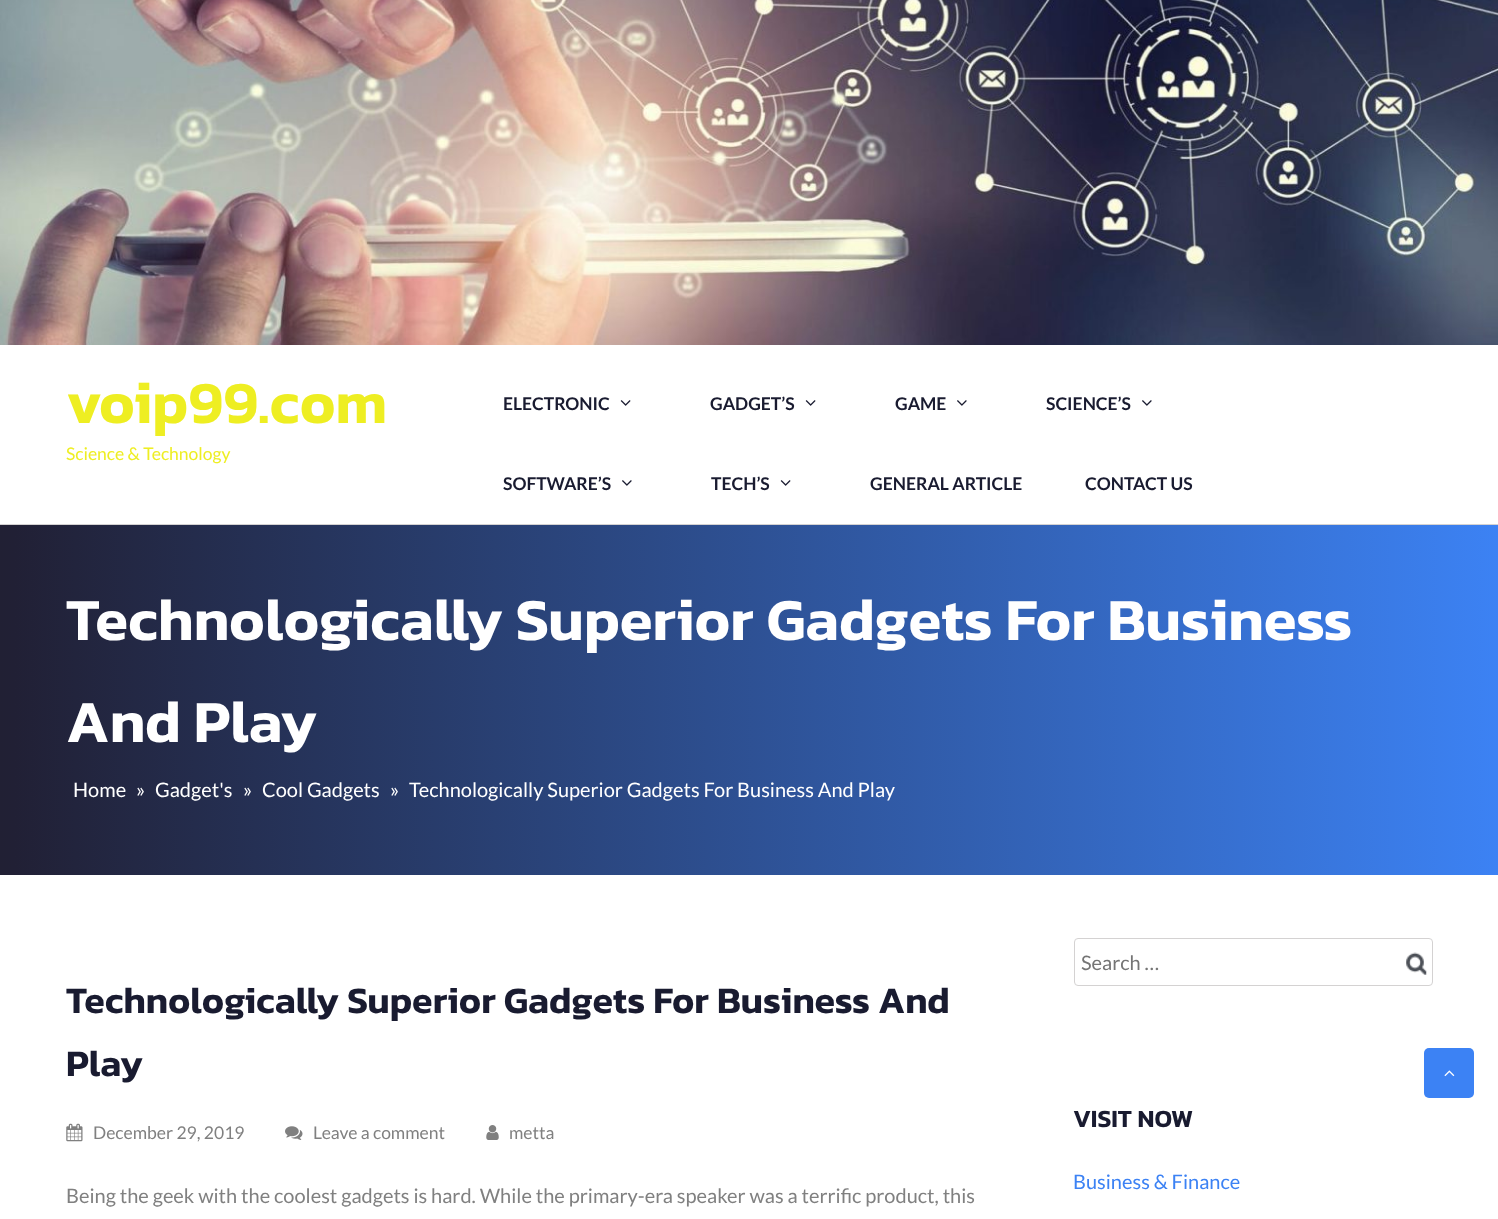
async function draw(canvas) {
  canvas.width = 1498;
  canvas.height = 1219;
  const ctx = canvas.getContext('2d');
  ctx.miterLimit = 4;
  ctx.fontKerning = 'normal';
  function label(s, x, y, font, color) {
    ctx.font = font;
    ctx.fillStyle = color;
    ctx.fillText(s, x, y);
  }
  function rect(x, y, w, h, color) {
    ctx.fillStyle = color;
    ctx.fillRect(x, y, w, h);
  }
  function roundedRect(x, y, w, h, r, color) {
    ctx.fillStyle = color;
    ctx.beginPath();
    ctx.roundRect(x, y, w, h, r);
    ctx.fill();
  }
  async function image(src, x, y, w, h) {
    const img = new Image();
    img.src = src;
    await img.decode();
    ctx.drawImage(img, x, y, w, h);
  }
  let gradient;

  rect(0, 0, 1498, 1219, '#fff');
  await image('assets/img1.png', 0, 0, 1498, 345);
  rect(0, 524, 1498, 1, '#d4d2d2');
  label('voip99.com', 66, 423, '600 60px Kanit', '#ee2');
  label('Science & Technology', 66, 460, '17.5px Lato', '#ee2');
  label('ELECTRONIC', 503, 410, 'bold 17.5px Lato', '#191b30');
  await image('assets/img2.png', 620, 400, 11, 6);
  label('GADGET’S', 710, 410, 'bold 17.5px Lato', '#191b30');
  await image('assets/img2.png', 805, 400, 11, 6);
  label('GAME', 895, 410, 'bold 17.5px Lato', '#191b30');
  await image('assets/img3.png', 957, 400, 10, 6);
  label('SCIENCE’S', 1046, 410, 'bold 17.5px Lato', '#191b30');
  await image('assets/img3.png', 1142, 400, 10, 6);
  label('SOFTWARE’S', 503, 490, 'bold 17.5px Lato', '#191b30');
  await image('assets/img3.png', 622, 480, 10, 6);
  label('TECH’S', 711, 490, 'bold 17.5px Lato', '#191b30');
  await image('assets/img2.png', 780, 480, 11, 6);
  label('GENERAL ARTICLE', 870, 490, 'bold 17.5px Lato', '#191b30');
  label('CONTACT US', 1085, 490, 'bold 17.5px Lato', '#191b30');
  gradient = ctx.createLinearGradient(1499, 700, 0, 700);
  gradient.addColorStop(0, '#3c82f4');
  gradient.addColorStop(0.67, '#294073');
  gradient.addColorStop(0.99, '#212035');
  gradient.addColorStop(1, '#212034');
  ctx.fillStyle = gradient;
  ctx.fillRect(0, 525, 1498, 350);
  label('Technologically Superior Gadgets For Business', 66, 640, '600 60px Kanit', '#fff');
  label('And Play', 66, 742, '600 60px Kanit', '#fff');
  label('Home', 73, 797, '20px Lato', '#fff');
  label('»', 136, 797, '20px Lato', '#fff');
  label('Gadget\'s', 155, 797, '20px Lato', '#fff');
  label('»', 243, 797, '20px Lato', '#fff');
  label('Cool Gadgets', 262, 797, '20px Lato', '#fff');
  label('»', 390, 797, '20px Lato', '#fff');
  label('Technologically Superior Gadgets For Business And Play', 409, 797, '20px Lato', '#fff');
  label('Technologically Superior Gadgets For Business And', 66, 1013, '600 37.5px Kanit', '#191b30');
  label('Play', 66, 1076, '600 37.5px Kanit', '#191b30');
  await image('assets/img4.png', 66, 1123, 17, 19);
  label('December 29, 2019', 93, 1139, '17.5px Lato', '#808080');
  await image('assets/img5.png', 285, 1126, 18, 14);
  label('Leave a comment', 313, 1139, '17.5px Lato', '#808080');
  await image('assets/img6.png', 486, 1125, 13, 15);
  label('metta', 509, 1139, '17.5px Lato', '#808080');
  label('Being the geek with the coolest gadgets is hard. While the primary-era speaker was a terrific product, this', 66, 1203, '20px Lato', '#808080');
  ctx.beginPath();
  ctx.roundRect(1074.5, 938.5, 358, 47, 3.5);
  ctx.strokeStyle = '#d4d2d2';
  ctx.stroke();
  label('Search …', 1081, 970, '20px Lato', '#757575');
  await image('assets/img7.png', 1406, 952, 21, 23);
  label('VISIT NOW', 1073, 1127, '600 25px Kanit', '#191b30');
  label('Business & Finance', 1073, 1189, '20px Lato', '#3c82f4');
  roundedRect(1424, 1048, 50, 50, 5, '#3c82f4');
  await image('assets/img8.png', 1444, 1070, 11, 7);
}

draw(document.querySelector('canvas'));
